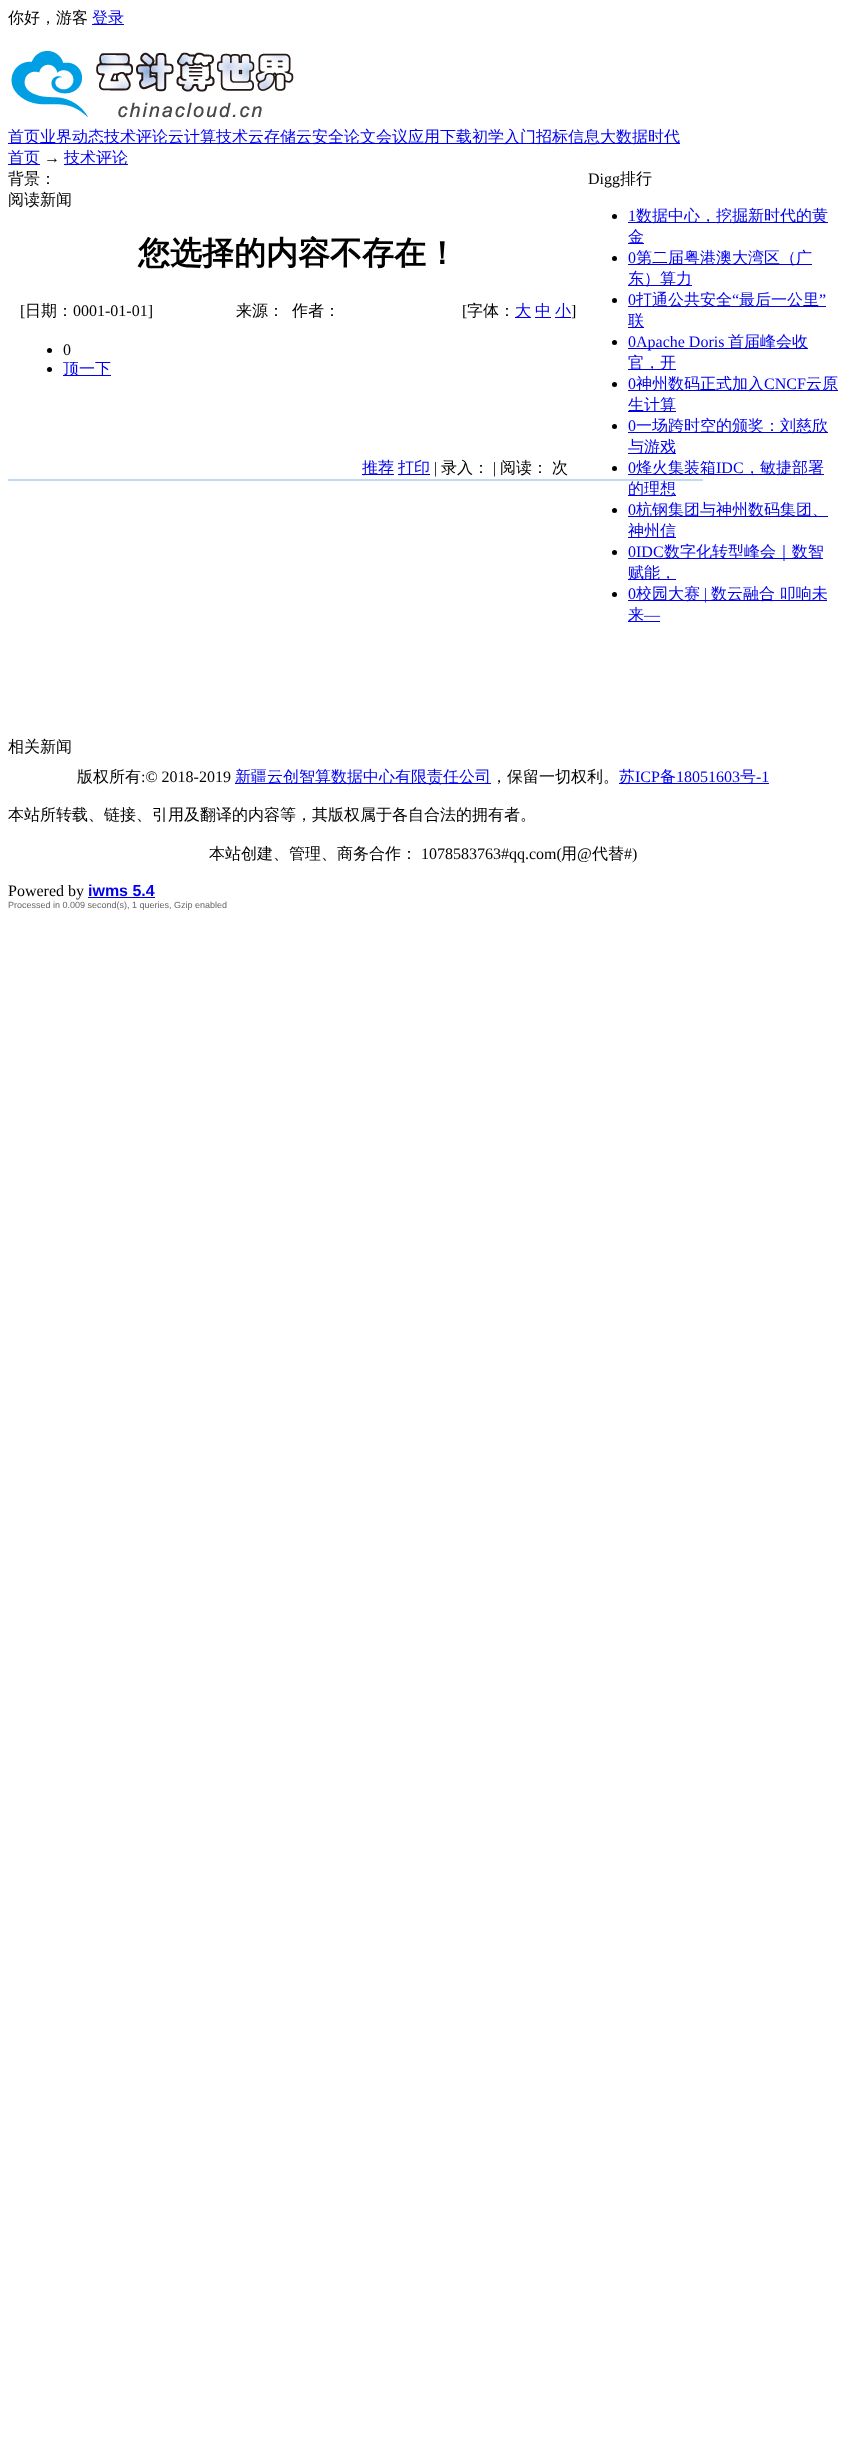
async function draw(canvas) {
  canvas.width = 846;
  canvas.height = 2446;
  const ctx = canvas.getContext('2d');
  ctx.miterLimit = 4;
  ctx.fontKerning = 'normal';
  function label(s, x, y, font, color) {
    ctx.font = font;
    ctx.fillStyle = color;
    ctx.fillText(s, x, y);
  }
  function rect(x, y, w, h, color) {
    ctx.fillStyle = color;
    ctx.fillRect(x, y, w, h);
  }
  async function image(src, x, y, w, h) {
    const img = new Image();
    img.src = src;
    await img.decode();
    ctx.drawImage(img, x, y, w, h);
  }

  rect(0, 0, 846, 2446, '#fff');
  label('你好，游客', 8, 23, '500 16px WenQuanYi Zen Hei', '#000');
  rect(92, 24, 32, 1, '#00e');
  label('登录', 92, 23, '500 16px WenQuanYi Zen Hei', '#00e');
  await image('assets/img1.png', 11, 51, 283, 67);
  rect(8, 143, 672, 1, '#00e');
  label('首页业界动态技术评论云计算技术云存储云安全论文会议应用下载初学入门招标信息大数据时代', 8, 142, '500 16px WenQuanYi Zen Hei', '#00e');
  rect(8, 164, 32, 1, '#00e');
  label('首页', 8, 163, '500 16px WenQuanYi Zen Hei', '#00e');
  label('→', 44, 163, '16px Liberation Serif', '#000');
  rect(64, 164, 64, 1, '#00e');
  label('技术评论', 64, 163, '500 16px WenQuanYi Zen Hei', '#00e');
  label('背景：', 8, 184, '500 16px WenQuanYi Zen Hei', '#000');
  label('阅读新闻', 8, 205, '500 16px WenQuanYi Zen Hei', '#000');
  label('您选择的内容不存在！', 138, 264, 'bold 32px WenQuanYi Zen Hei', '#000');
  label('[', 20, 316, '16px Liberation Serif', '#000');
  label('日期：', 25, 316, '500 16px WenQuanYi Zen Hei', '#000');
  label('0001-01-01]', 73, 316, '16px Liberation Serif', '#000');
  label('来源：', 236, 316, '500 16px WenQuanYi Zen Hei', '#000');
  label('作者：', 292, 316, '500 16px WenQuanYi Zen Hei', '#000');
  label('[', 462, 316, '16px Liberation Serif', '#000');
  label('字体：', 467, 316, '500 16px WenQuanYi Zen Hei', '#000');
  rect(515, 317, 16, 1, '#00e');
  label('大', 515, 316, '500 16px WenQuanYi Zen Hei', '#00e');
  rect(535, 317, 16, 1, '#00e');
  label('中', 535, 316, '500 16px WenQuanYi Zen Hei', '#00e');
  rect(555, 317, 16, 1, '#00e');
  label('小', 555, 316, '500 16px WenQuanYi Zen Hei', '#00e');
  label(']', 571, 316, '16px Liberation Serif', '#000');
  ctx.beginPath();
  ctx.arc(49.5, 350.5, 2.5, 0, 2 * Math.PI);
  ctx.fill();
  label('0', 63, 355, '16px Liberation Serif', '#000');
  ctx.beginPath();
  ctx.arc(49.5, 369.5, 2.5, 0, 2 * Math.PI);
  ctx.fill();
  rect(63, 375, 48, 1, '#00e');
  label('顶一下', 63, 374, '500 16px WenQuanYi Zen Hei', '#00e');
  rect(362, 474, 32, 1, '#00e');
  label('推荐', 362, 473, '500 16px WenQuanYi Zen Hei', '#00e');
  rect(398, 474, 32, 1, '#00e');
  label('打印', 398, 473, '500 16px WenQuanYi Zen Hei', '#00e');
  label('|', 434, 473, '16px Liberation Serif', '#000');
  label('录入：', 441, 473, '500 16px WenQuanYi Zen Hei', '#000');
  label('|', 493, 473, '16px Liberation Serif', '#000');
  label('阅读：', 500, 473, '500 16px WenQuanYi Zen Hei', '#000');
  label('次', 552, 473, '500 16px WenQuanYi Zen Hei', '#000');
  rect(8, 479, 695, 2, '#c2d9f2');
  label('相关新闻', 8, 752, '500 16px WenQuanYi Zen Hei', '#000');
  label('Digg', 588, 184, '16px Liberation Serif', '#000');
  label('排行', 620, 184, '500 16px WenQuanYi Zen Hei', '#000');
  ctx.beginPath();
  ctx.arc(614.5, 216.5, 2.5, 0, 2 * Math.PI);
  ctx.fill();
  label('1', 628, 221, '16px Liberation Serif', '#00e');
  rect(628, 222, 200, 1, '#00e');
  label('数据中心，挖掘新时代的黄', 636, 221, '500 16px WenQuanYi Zen Hei', '#00e');
  rect(628, 243, 16, 1, '#00e');
  label('金', 628, 242, '500 16px WenQuanYi Zen Hei', '#00e');
  ctx.fillStyle = '#000';
  ctx.beginPath();
  ctx.arc(614.5, 258.5, 2.5, 0, 2 * Math.PI);
  ctx.fill();
  label('0', 628, 263, '16px Liberation Serif', '#00e');
  rect(628, 264, 184, 1, '#00e');
  label('第二届粤港澳大湾区（广', 636, 263, '500 16px WenQuanYi Zen Hei', '#00e');
  rect(628, 285, 64, 1, '#00e');
  label('东）算力', 628, 284, '500 16px WenQuanYi Zen Hei', '#00e');
  label('0', 628, 305, '16px Liberation Serif', '#00e');
  rect(628, 306, 198, 1, '#00e');
  label('打通公共安全', 636, 305, '500 16px WenQuanYi Zen Hei', '#00e');
  label('“', 732, 305, '16px Liberation Serif', '#00e');
  label('最后一公里', 739, 305, '500 16px WenQuanYi Zen Hei', '#00e');
  label('”', 819, 305, '16px Liberation Serif', '#00e');
  ctx.fillStyle = '#000';
  ctx.beginPath();
  ctx.arc(614.5, 300.5, 2.5, 0, 2 * Math.PI);
  ctx.fill();
  rect(628, 327, 16, 1, '#00e');
  label('联', 628, 326, '500 16px WenQuanYi Zen Hei', '#00e');
  ctx.fillStyle = '#000';
  ctx.beginPath();
  ctx.arc(614.5, 342.5, 2.5, 0, 2 * Math.PI);
  ctx.fill();
  rect(628, 348, 180, 1, '#00e');
  label('0Apache Doris', 628, 347, '16px Liberation Serif', '#00e');
  label('首届峰会收', 728, 347, '500 16px WenQuanYi Zen Hei', '#00e');
  rect(628, 369, 48, 1, '#00e');
  label('官，开', 628, 368, '500 16px WenQuanYi Zen Hei', '#00e');
  ctx.fillStyle = '#000';
  ctx.beginPath();
  ctx.arc(614.5, 384.5, 2.5, 0, 2 * Math.PI);
  ctx.fill();
  label('0', 628, 389, '16px Liberation Serif', '#00e');
  rect(628, 390, 210, 1, '#00e');
  label('神州数码正式加入', 636, 389, '500 16px WenQuanYi Zen Hei', '#00e');
  label('CNCF', 764, 389, '16px Liberation Serif', '#00e');
  label('云原', 806, 389, '500 16px WenQuanYi Zen Hei', '#00e');
  rect(628, 411, 48, 1, '#00e');
  label('生计算', 628, 410, '500 16px WenQuanYi Zen Hei', '#00e');
  ctx.fillStyle = '#000';
  ctx.beginPath();
  ctx.arc(614.5, 426.5, 2.5, 0, 2 * Math.PI);
  ctx.fill();
  label('0', 628, 431, '16px Liberation Serif', '#00e');
  rect(628, 432, 200, 1, '#00e');
  label('一场跨时空的颁奖：刘慈欣', 636, 431, '500 16px WenQuanYi Zen Hei', '#00e');
  rect(628, 453, 48, 1, '#00e');
  label('与游戏', 628, 452, '500 16px WenQuanYi Zen Hei', '#00e');
  ctx.fillStyle = '#000';
  ctx.beginPath();
  ctx.arc(614.5, 468.5, 2.5, 0, 2 * Math.PI);
  ctx.fill();
  label('0', 628, 473, '16px Liberation Serif', '#00e');
  rect(628, 474, 196, 1, '#00e');
  label('烽火集装箱', 636, 473, '500 16px WenQuanYi Zen Hei', '#00e');
  label('IDC', 716, 473, '16px Liberation Serif', '#00e');
  label('，敏捷部署', 744, 473, '500 16px WenQuanYi Zen Hei', '#00e');
  rect(628, 495, 48, 1, '#00e');
  label('的理想', 628, 494, '500 16px WenQuanYi Zen Hei', '#00e');
  ctx.fillStyle = '#000';
  ctx.beginPath();
  ctx.arc(614.5, 510.5, 2.5, 0, 2 * Math.PI);
  ctx.fill();
  label('0', 628, 515, '16px Liberation Serif', '#00e');
  rect(628, 516, 200, 1, '#00e');
  label('杭钢集团与神州数码集团、', 636, 515, '500 16px WenQuanYi Zen Hei', '#00e');
  rect(628, 537, 48, 1, '#00e');
  label('神州信', 628, 536, '500 16px WenQuanYi Zen Hei', '#00e');
  ctx.fillStyle = '#000';
  ctx.beginPath();
  ctx.arc(614.5, 552.5, 2.5, 0, 2 * Math.PI);
  ctx.fill();
  label('0IDC', 628, 557, '16px Liberation Serif', '#00e');
  rect(628, 558, 195, 1, '#00e');
  label('数字化转型峰会｜数智', 664, 557, '500 16px WenQuanYi Zen Hei', '#00e');
  rect(628, 579, 48, 1, '#00e');
  label('赋能，', 628, 578, '500 16px WenQuanYi Zen Hei', '#00e');
  ctx.fillStyle = '#000';
  ctx.beginPath();
  ctx.arc(614.5, 594.5, 2.5, 0, 2 * Math.PI);
  ctx.fill();
  label('0', 628, 599, '16px Liberation Serif', '#00e');
  rect(628, 600, 199, 1, '#00e');
  label('校园大赛', 636, 599, '500 16px WenQuanYi Zen Hei', '#00e');
  label('|', 704, 599, '16px Liberation Serif', '#00e');
  label('数云融合 叩响未', 711, 599, '500 16px WenQuanYi Zen Hei', '#00e');
  rect(628, 621, 32, 1, '#00e');
  label('来', 628, 620, '500 16px WenQuanYi Zen Hei', '#00e');
  label('—', 644, 620, '16px Liberation Serif', '#00e');
  label('版权所有', 77, 782, '500 16px WenQuanYi Zen Hei', '#000');
  label(':© 2018-2019', 141, 782, '16px Liberation Serif', '#000');
  rect(235, 783, 256, 1, '#00e');
  label('新疆云创智算数据中心有限责任公司', 235, 782, '500 16px WenQuanYi Zen Hei', '#00e');
  label('，保留一切权利。', 491, 782, '500 16px WenQuanYi Zen Hei', '#000');
  rect(619, 783, 150, 1, '#00e');
  label('苏', 619, 782, '500 16px WenQuanYi Zen Hei', '#00e');
  label('ICP', 635, 782, '16px Liberation Serif', '#00e');
  label('备', 660, 782, '500 16px WenQuanYi Zen Hei', '#00e');
  label('18051603', 676, 782, '16px Liberation Serif', '#00e');
  label('号', 740, 782, '500 16px WenQuanYi Zen Hei', '#00e');
  label('-1', 756, 782, '16px Liberation Serif', '#00e');
  label('本站所转载、链接、引用及翻译的内容等，其版权属于各自合法的拥有者。', 8, 820, '500 16px WenQuanYi Zen Hei', '#000');
  label('本站创建、管理、商务合作：', 209, 859, '500 16px WenQuanYi Zen Hei', '#000');
  label('1078583763#qq.com(', 421, 859, '16px Liberation Serif', '#000');
  label('用', 561, 859, '500 16px WenQuanYi Zen Hei', '#000');
  label('@', 577, 859, '16px Liberation Serif', '#000');
  label('代替', 592, 859, '500 16px WenQuanYi Zen Hei', '#000');
  label('#)', 624, 859, '16px Liberation Serif', '#000');
  label('Powered by', 8, 896, '16px Liberation Serif', '#000');
  label('iwms 5.4', 88, 896, 'bold 16px Liberation Sans', '#00e');
  rect(88, 897, 67, 1, '#00e');
  label('Processed in 0.009 second(s), 1 queries, Gzip enabled', 8, 908, '9px Liberation Sans', '#666');
}

draw(document.querySelector('canvas'));
